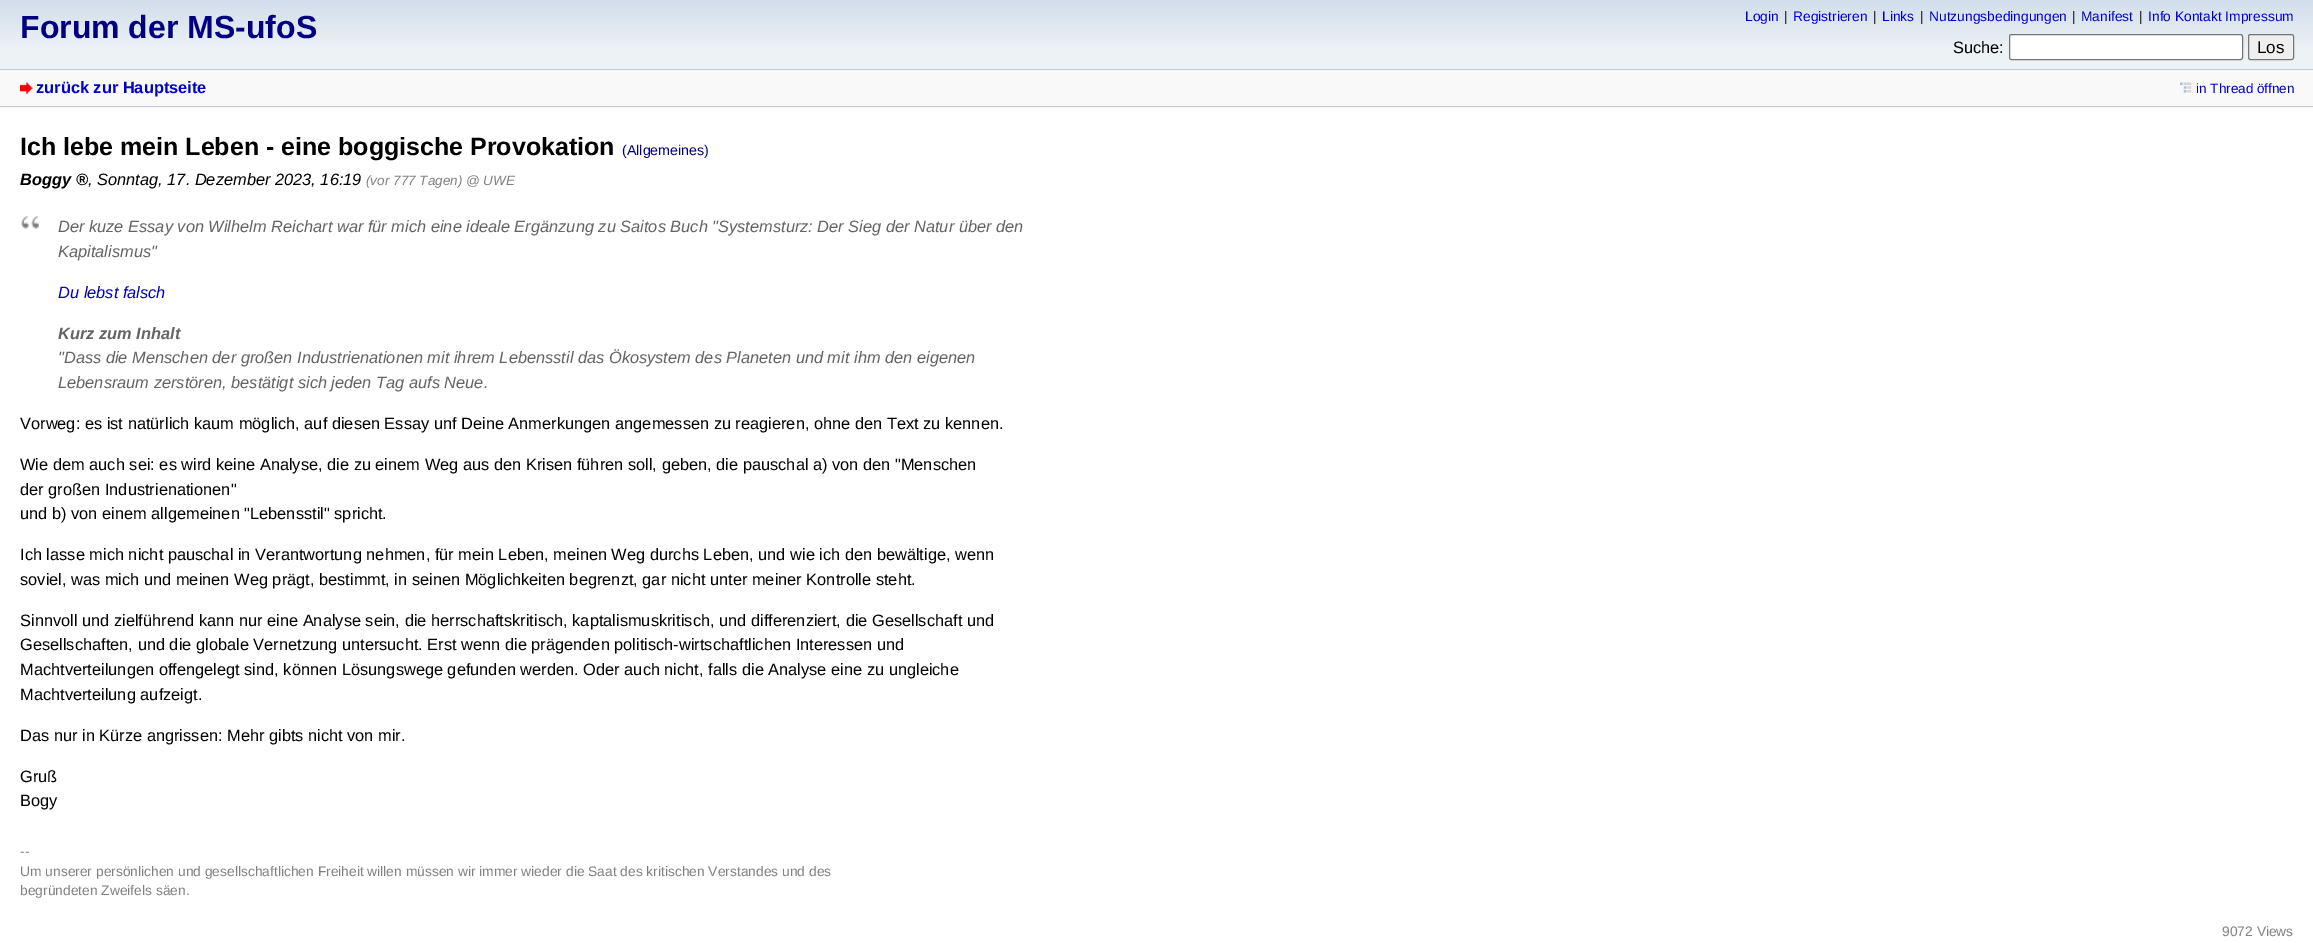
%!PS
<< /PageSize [2313 943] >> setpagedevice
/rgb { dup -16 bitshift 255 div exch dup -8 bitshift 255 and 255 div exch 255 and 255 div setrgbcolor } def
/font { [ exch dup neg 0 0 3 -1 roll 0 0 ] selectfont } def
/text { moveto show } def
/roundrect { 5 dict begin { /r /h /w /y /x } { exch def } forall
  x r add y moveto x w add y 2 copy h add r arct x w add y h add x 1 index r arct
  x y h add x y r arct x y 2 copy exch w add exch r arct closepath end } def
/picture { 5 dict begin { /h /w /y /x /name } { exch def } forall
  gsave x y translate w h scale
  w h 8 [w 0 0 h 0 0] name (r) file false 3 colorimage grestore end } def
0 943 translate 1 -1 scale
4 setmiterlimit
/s1 { /LiberationSans-Bold 32 font 16#000080 rgb } def
/s2 { /LiberationSans-Regular 13.8 font 16#0000CC rgb } def
/s3 { /LiberationSans-Regular 13.8 font 16#000000 rgb } def
/s4 { /LiberationSans-Regular 16.4 font 16#000000 rgb } def
/s5 { /LiberationSans-Regular 17 font 16#000000 rgb } def
/s6 { /LiberationSans-Bold 16.4 font 16#0000CC rgb } def
/s7 { /LiberationSans-Regular 13.5 font 16#0000CC rgb } def
/s8 { /LiberationSans-Bold 25 font 16#000000 rgb } def
/s9 { /LiberationSans-Regular 14.25 font 16#000080 rgb } def
/s10 { /LiberationSans-BoldItalic 16.4 font 16#000000 rgb } def
/s11 { /LiberationSans-Italic 16.4 font 16#000000 rgb } def
/s12 { /LiberationSans-Italic 13.5 font 16#808080 rgb } def
/s13 { /LiberationSans-Italic 16.4 font 16#646464 rgb } def
/s14 { /LiberationSans-Italic 16.4 font 16#0000CC rgb } def
/s15 { /LiberationSans-BoldItalic 16.4 font 16#646464 rgb } def
/s16 { /LiberationSans-Regular 13.8 font 16#808080 rgb } def
16#F9F9F9 rgb
0 0 2313 943 rectfill
gsave 0 0 moveto 2313 0 lineto 2313 69 lineto 0 69 lineto closepath clip newpath
<< /ShadingType 2 /ColorSpace /DeviceRGB /Coords [1157 0 1157 69] /Extend [true true] /Function << /FunctionType 3 /Domain [0 1] /Functions [<< /FunctionType 2 /Domain [0 1] /C0 [0.824 0.871 0.925] /C1 [0.929 0.949 0.961] /N 1 >> << /FunctionType 2 /Domain [0 1] /C0 [0.929 0.949 0.961] /C1 [0.929 0.949 0.961] /N 1 >>] /Bounds [0.73] /Encode [0 1 0 1] >> >> shfill grestore
s1
(Forum der MS-ufoS) 20 38 text
s2
(Login) 1745 21 text
s3
(|) 1784 21 text
s2
(Registrieren) 1793 21 text
s3
(|) 1873 21 text
s2
(Links) 1882 21 text
s3
(|) 1920 21 text
s2
(Nutzungsbedingungen) 1929 21 text
s3
(|) 2072 21 text
s2
(Manifest) 2081 21 text
s3
(|) 2139 21 text
s2
(Info Kontakt Impressum) 2148 21 text
s4
(Suche:) 1953 53 text
16#FFFFFF rgb
2009.5 34.5 233 25 2 roundrect gsave fill grestore
16#767676 rgb
stroke
16#EFEFEF rgb
2248.5 34.5 45 25 2 roundrect gsave fill grestore
16#767676 rgb
stroke
s5
(Los) 2257 53 text
16#BACBDF rgb
0 69 2313 1 rectfill
0 106 2313 1 rectfill
(pic1.raw) 20 82 13 12 picture
s6
(zurück zur Hauptseite) 36 93 text
(pic2.raw) 2180 82 12 11 picture
s7
(in Thread öffnen) 2196 93 text
16#FFFFFF rgb
0 108 2313 835 rectfill
s8
(Ich lebe mein Leben - eine boggische Provokation) 20 155 text
s9
(\(Allgemeines\)) 622 155 text
s10
(Boggy ®) 20 185 text
s11
(, Sonntag, 17. Dezember 2023, 16:19) 88 185 text
s12
(\(vor 777 Tagen\)) 366 185 text
(@ UWE) 466 185 text
(pic3.raw) 21 216 18 13 picture
s13
(Der kuze Essay von Wilhelm Reichart war für mich eine ideale Ergänzung zu Saitos Buch "Systemsturz: Der Sieg der Natur über den) 58 232 text
(Kapitalismus") 58 257 text
s14
(Du lebst falsch) 58 298 text
s15
(Kurz zum Inhalt) 58 339 text
s13
("Dass die Menschen der großen Industrienationen mit ihrem Lebensstil das Ökosystem des Planeten und mit ihm den eigenen) 58 363 text
(Lebensraum zerstören, bestätigt sich jeden Tag aufs Neue.) 58 388 text
s4
(Vorweg: es ist natürlich kaum möglich, auf diesen Essay unf Deine Anmerkungen angemessen zu reagieren, ohne den Text zu kennen.) 20 429 text
(Wie dem auch sei: es wird keine Analyse, die zu einem Weg aus den Krisen führen soll, geben, die pauschal a\) von den "Menschen) 20 470 text
(der großen Industrienationen") 20 495 text
(und b\) von einem allgemeinen "Lebensstil" spricht.) 20 519 text
(Ich lasse mich nicht pauschal in Verantwortung nehmen, für mein Leben, meinen Weg durchs Leben, und wie ich den bewältige, wenn) 20 560 text
(soviel, was mich und meinen Weg prägt, bestimmt, in seinen Möglichkeiten begrenzt, gar nicht unter meiner Kontrolle steht.) 20 585 text
(Sinnvoll und zielführend kann nur eine Analyse sein, die herrschaftskritisch, kaptalismuskritisch, und differenziert, die Gesellschaft und) 20 626 text
(Gesellschaften, und die globale Vernetzung untersucht. Erst wenn die prägenden politisch-wirtschaftlichen Interessen und) 20 650 text
(Machtverteilungen offengelegt sind, können Lösungswege gefunden werden. Oder auch nicht, falls die Analyse eine zu ungleiche) 20 675 text
(Machtverteilung aufzeigt.) 20 700 text
(Das nur in Kürze angrissen: Mehr gibts nicht von mir.) 20 741 text
(Gruß) 20 782 text
(Bogy) 20 806 text
s16
(--) 20 856 text
(Um unserer persönlichen und gesellschaftlichen Freiheit willen müssen wir immer wieder die Saat des kritischen Verstandes und des) 20 876 text
(begründeten Zweifels säen.) 20 895 text
(9072 Views) 2222 936 text
showpage
